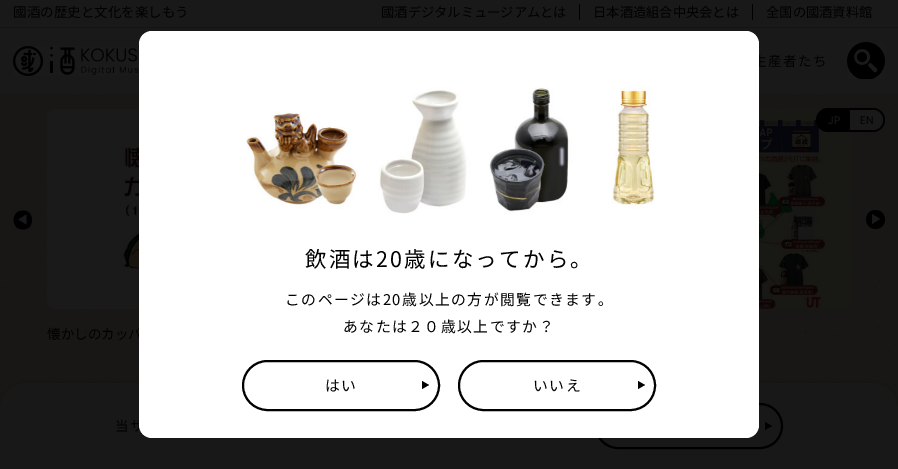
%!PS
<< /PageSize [898 469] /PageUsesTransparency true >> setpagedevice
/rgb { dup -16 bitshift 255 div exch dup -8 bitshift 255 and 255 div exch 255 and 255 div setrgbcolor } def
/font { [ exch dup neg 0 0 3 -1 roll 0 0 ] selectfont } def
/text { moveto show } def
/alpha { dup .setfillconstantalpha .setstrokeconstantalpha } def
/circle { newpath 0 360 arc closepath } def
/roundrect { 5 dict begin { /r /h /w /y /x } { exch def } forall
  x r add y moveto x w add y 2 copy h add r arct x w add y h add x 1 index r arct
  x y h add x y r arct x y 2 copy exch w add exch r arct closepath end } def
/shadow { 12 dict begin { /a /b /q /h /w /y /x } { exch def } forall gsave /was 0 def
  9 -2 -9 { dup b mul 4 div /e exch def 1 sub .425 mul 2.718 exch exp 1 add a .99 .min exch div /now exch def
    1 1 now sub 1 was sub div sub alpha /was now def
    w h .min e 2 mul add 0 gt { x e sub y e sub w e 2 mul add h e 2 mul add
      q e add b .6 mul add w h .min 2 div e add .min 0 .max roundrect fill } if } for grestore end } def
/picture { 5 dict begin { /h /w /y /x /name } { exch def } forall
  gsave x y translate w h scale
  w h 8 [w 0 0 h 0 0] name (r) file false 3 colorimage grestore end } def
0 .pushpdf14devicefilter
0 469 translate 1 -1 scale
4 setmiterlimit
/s1 { /NotoSansJP-Thin 13.5 font 16#000000 rgb } def
/s2 { /NotoSansJP-Thin 13.25 font 16#000000 rgb } def
/s3 { /Poppins-Regular 11 font 16#191919 rgb } def
/s4 { /Poppins-Regular 11 font 16#000000 rgb } def
16#FFFFFF rgb
0 0 898 469 rectfill
(pic3.raw) 0 94 898 316 picture
(pic4.raw) 759 109 92 200 picture
(pic5.raw) 47 109 92 200 picture
16#000000 rgb
0 4 898 97 0 3.5 0.1 shadow
16#191919 rgb
0 0 898 94 rectfill
s1
(國酒の歴史と文化を楽しもう) 13 17 text
s2
(國酒デジタルミュージアムとは) 381 17 text
579 4 1 16 rectfill
(日本酒造組合中央会とは) 593 17 text
752 4 1 16 rectfill
(全国の國酒資料館) 766 17 text
/NotoSansJP-Thin 13.5 font
753 66 moveto 1.5 0 (生産者たち) ashow
(pic1.raw) 847 42 38 37 picture
(pic2.raw) 13 46 126 30 picture
816 108 69 24 12 roundrect fill
s3
(JP) 828 124 text
850 110 moveto 873 110 lineto 878.5 110 883 114.5 883 120 curveto 883 125.5 878.5 130 873 130 curveto 850 130 lineto closepath fill
s4
(EN) 860 124 text
16#141414 rgb
0 27 898 1 rectfill
16#000000 rgb
23 210.5 moveto 10.5 210.5 10.5 229.5 23 229.5 curveto 35 229.5 35 210.5 23 210.5 curveto closepath fill
16#191919 rgb
26.5 224.5 moveto 26.5 214.5 lineto 18.5 219.5 lineto closepath fill
16#000000 rgb
875.5 219.5 9.5 circle fill
16#191919 rgb
872 224 moveto 872 214 lineto 880 219 lineto closepath fill
s1
(懐かしのカッパ) 47 339 text
0 383 898 86 27 6.5 0.2 shadow
16#181818 rgb
27 383 moveto 871 383 lineto 886 383 898 395 898 410 curveto 898 469 lineto 0 469 lineto 0 410 lineto 0 395 12 383 27 383 curveto closepath fill
16#000000 rgb
115 431 moveto 1.5 0 (当サ) ashow
2 setlinewidth
596 404 186 44 22 roundrect stroke
16#FFFFFF rgb
139 31 620 407 13 roundrect fill
(pic6.raw) 246 87 409 127 picture
/NotoSansJP-Thin 21.5 font
16#000000 rgb
305 267 moveto 2.2 0 (飲酒は20歳になってから。) ashow
/NotoSansJP-Thin 14.8 font
285 305 moveto 1.5 0 (このページは20歳以上の方が閲覧できます。) ashow
343 332 moveto 1.5 0 (あなたは２０歳以上ですか？) ashow
243 361 196 49 24.5 roundrect stroke
325 391 moveto 1.5 0 (はい) ashow
422 389 moveto 422 381 lineto 429 385 lineto closepath fill
459 361 196 49 24.5 roundrect stroke
533 391 moveto 1.5 0 (いいえ) ashow
638 389 moveto 638 381 lineto 645 385 lineto closepath fill
765 430 moveto 765 422 lineto 772 426 lineto closepath fill
.poppdf14devicefilter showpage
